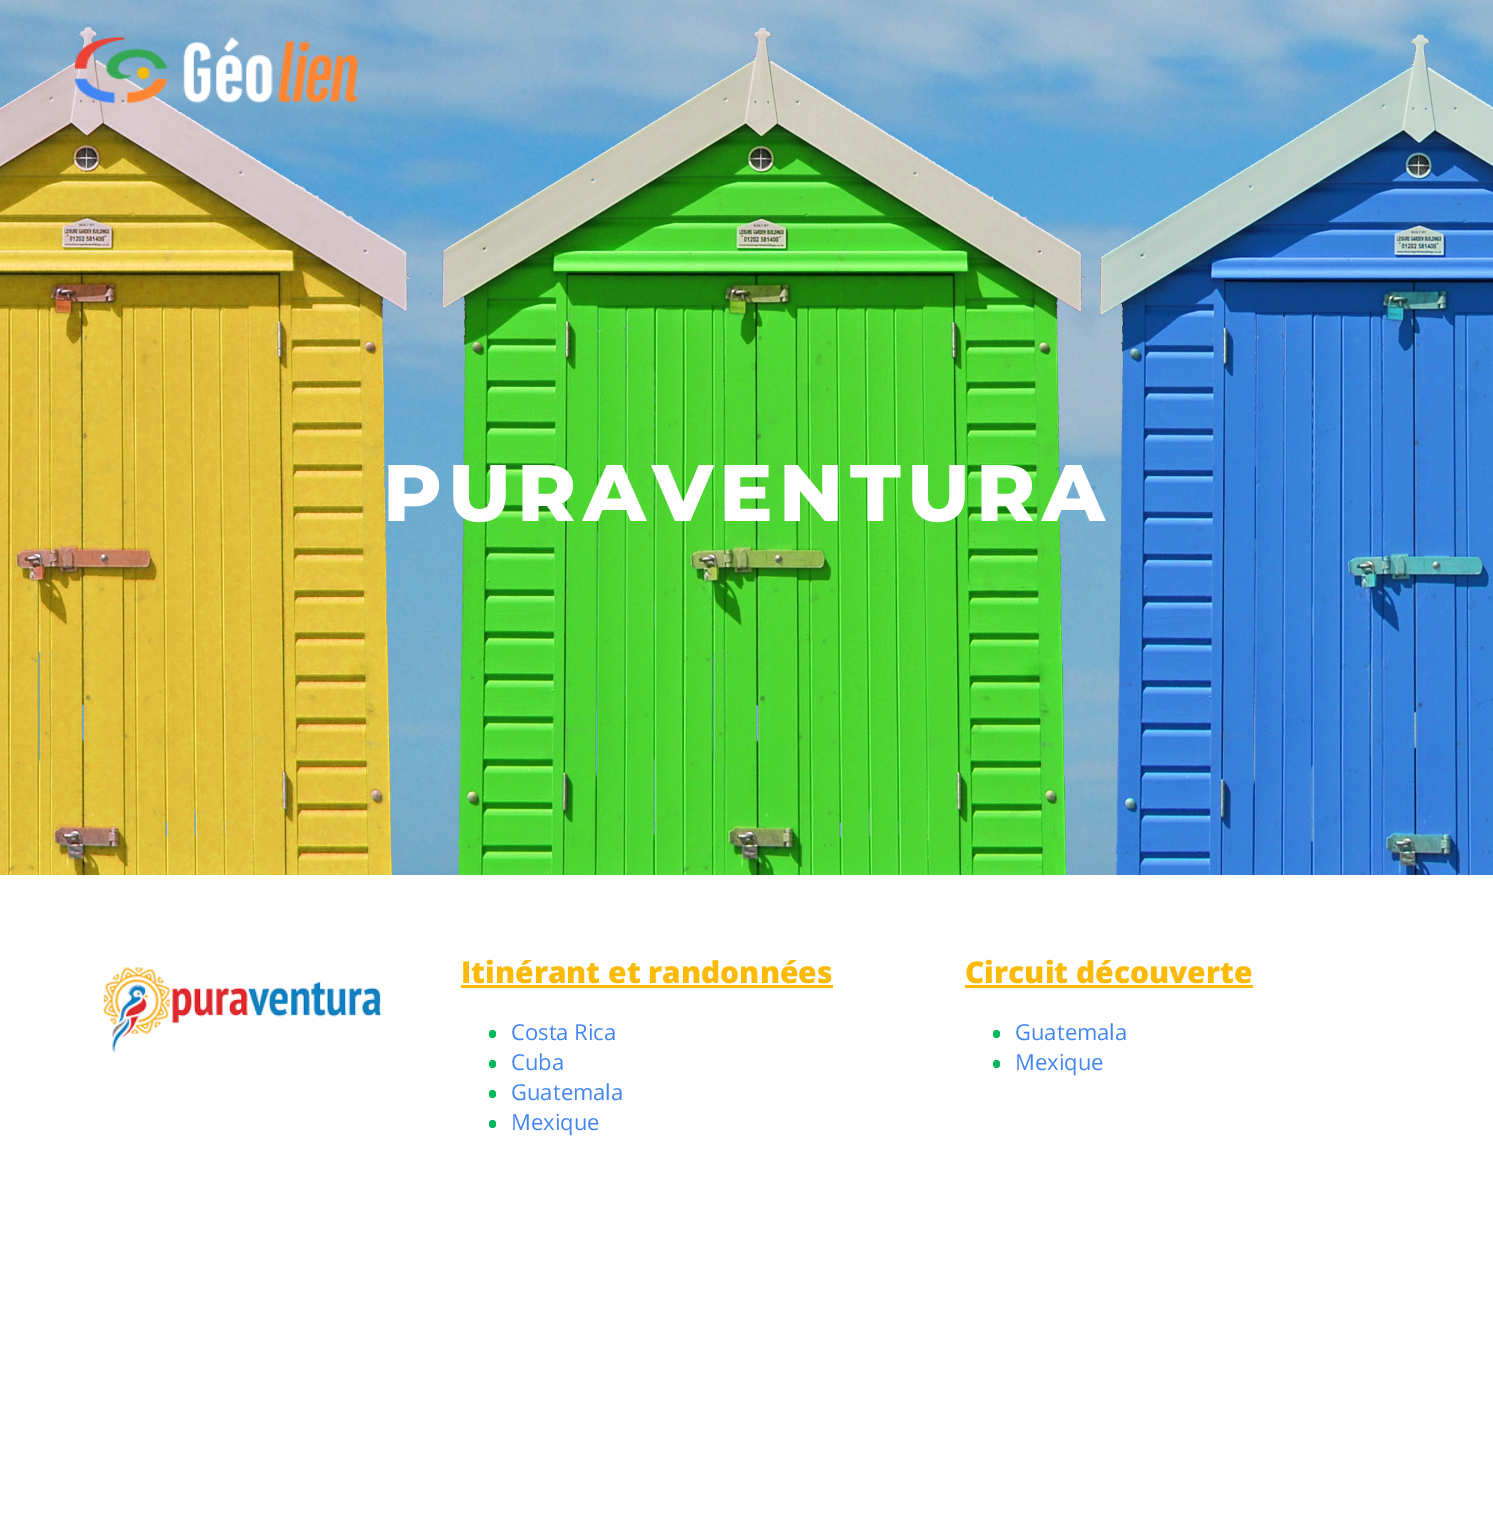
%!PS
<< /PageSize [1493 1527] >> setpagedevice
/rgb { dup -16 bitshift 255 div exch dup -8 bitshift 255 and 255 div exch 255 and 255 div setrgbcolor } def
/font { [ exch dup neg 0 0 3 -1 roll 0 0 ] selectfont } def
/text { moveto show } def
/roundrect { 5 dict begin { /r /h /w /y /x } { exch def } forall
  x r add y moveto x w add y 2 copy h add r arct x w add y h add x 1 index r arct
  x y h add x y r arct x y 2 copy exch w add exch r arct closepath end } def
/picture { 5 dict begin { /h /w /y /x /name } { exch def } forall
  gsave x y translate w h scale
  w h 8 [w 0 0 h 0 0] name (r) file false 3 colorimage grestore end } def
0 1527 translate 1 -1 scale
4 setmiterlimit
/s1 { /OpenSans-ExtraBold 30 font 16#FABA06 rgb } def
/s2 { /OpenSans-Regular 22 font 16#4285F4 rgb } def
16#FFFFFF rgb
0 0 1493 1527 rectfill
(pic1.raw) 0 0 1493 875 picture
(pic2.raw) 75 37 283 67 picture
/Montserrat-Thin 80 font
383 521 moveto 6.25 0 (PURAVENTURA) ashow
(pic3.raw) 103 967 279 86 picture
s1
(Itinérant et randonnées) 461 983 text
461 985 372 3 rectfill
16#00B75B rgb
489 1030 7 8 3.5 roundrect fill
s2
(Costa Rica) 511 1040 text
16#00B75B rgb
489 1060 7 8 3.5 roundrect fill
s2
(Cuba) 511 1070 text
16#00B75B rgb
489 1090 7 8 3.5 roundrect fill
s2
(Guatemala) 511 1100 text
16#00B75B rgb
489 1120 7 8 3.5 roundrect fill
s2
(Mexique) 511 1130 text
s1
(Circuit découverte) 965 983 text
965 985 288 3 rectfill
16#00B75B rgb
993 1030 7 8 3.5 roundrect fill
s2
(Guatemala) 1015 1040 text
16#00B75B rgb
993 1060 7 8 3.5 roundrect fill
s2
(Mexique) 1015 1070 text
showpage
